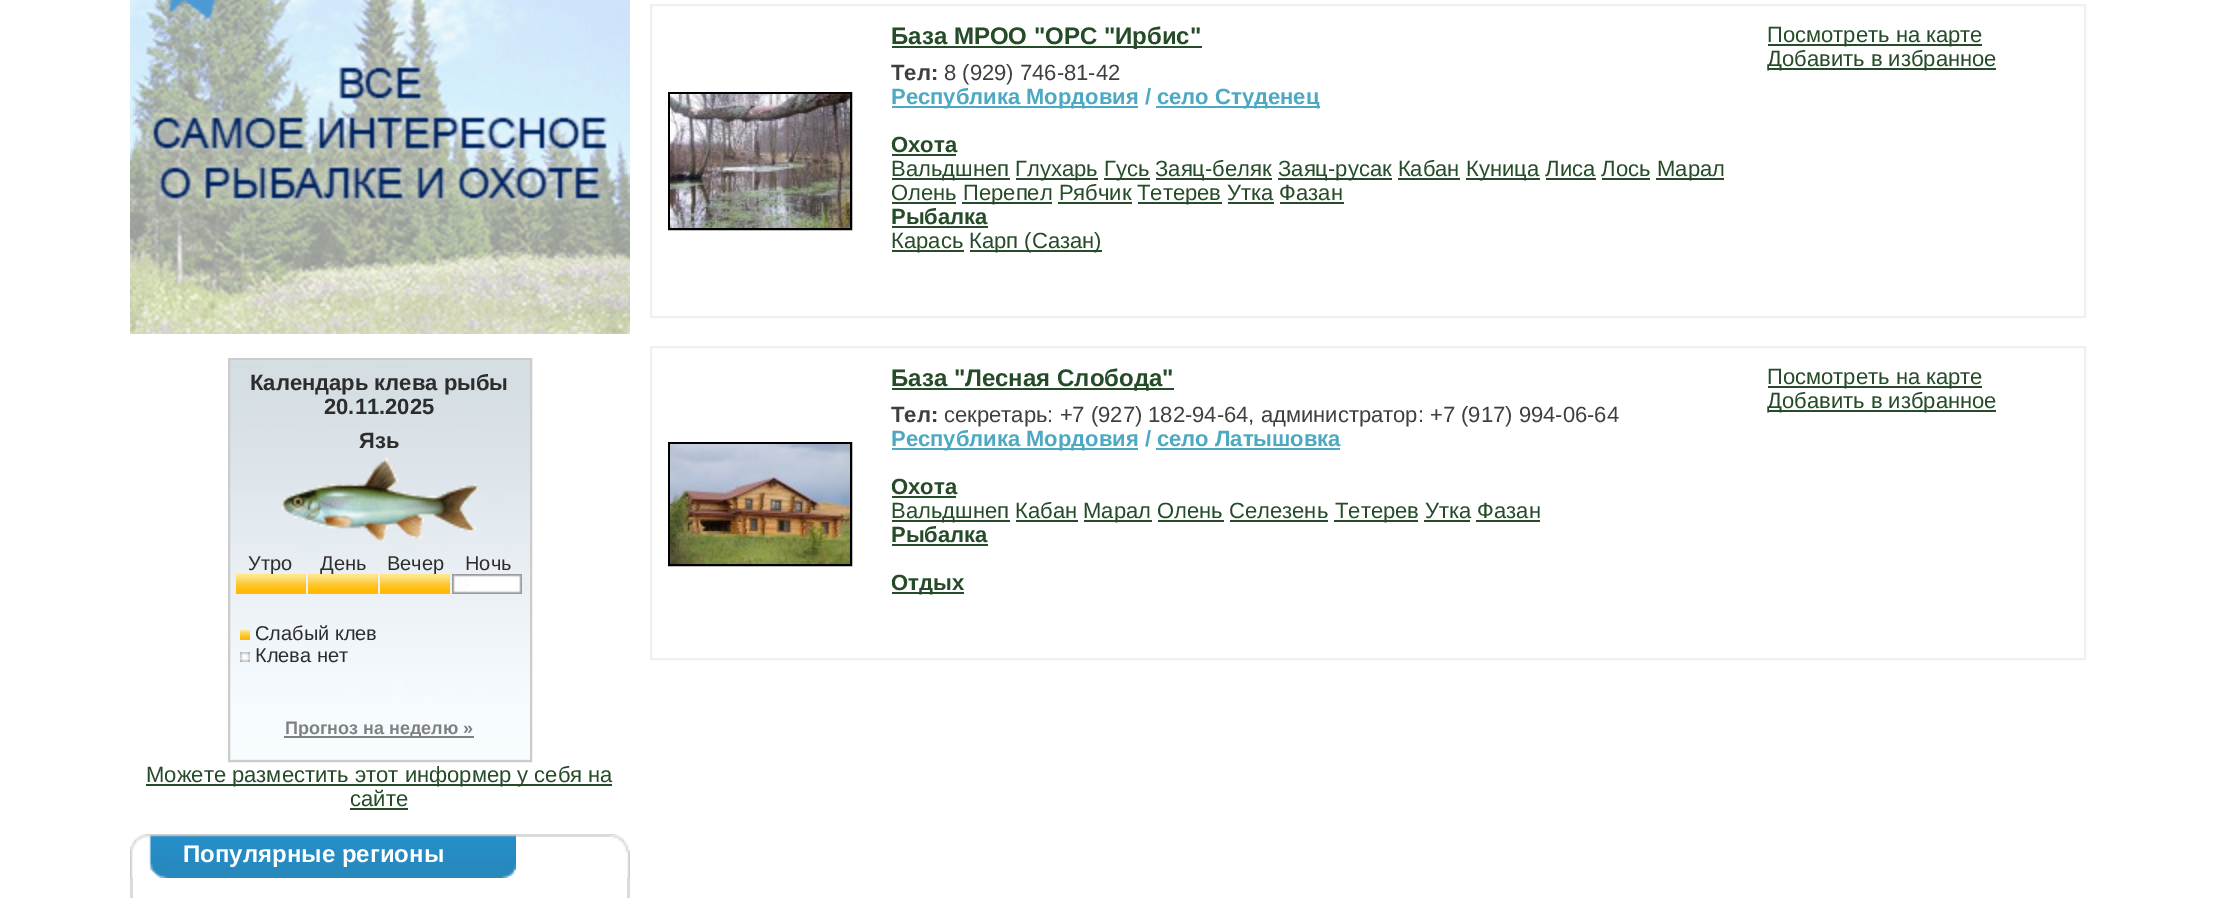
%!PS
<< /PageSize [2214 898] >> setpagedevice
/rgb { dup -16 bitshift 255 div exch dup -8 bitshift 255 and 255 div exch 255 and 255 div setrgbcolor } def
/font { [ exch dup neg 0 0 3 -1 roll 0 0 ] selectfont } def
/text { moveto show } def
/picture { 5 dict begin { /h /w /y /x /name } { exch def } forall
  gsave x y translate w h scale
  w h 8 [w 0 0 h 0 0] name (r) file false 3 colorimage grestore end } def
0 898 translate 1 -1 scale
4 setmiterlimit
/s1 { /LiberationSans-Bold 22 font 16#2D2D2D rgb } def
/s2 { /LiberationSans-Regular 20 font 16#2D2D2D rgb } def
/s3 { /LiberationSans-Bold 18 font 16#808080 rgb } def
/s4 { /LiberationSans-Regular 22 font 16#254B29 rgb } def
/s5 { /LiberationSans-Bold 24 font 16#FFFFFF rgb } def
/s6 { /LiberationSans-Bold 24 font 16#254B29 rgb } def
/s7 { /LiberationSans-Bold 22 font 16#3F3F3F rgb } def
/s8 { /LiberationSans-Regular 22 font 16#3F3F3F rgb } def
/s9 { /LiberationSans-Bold 22 font 16#4DA9C2 rgb } def
/s10 { /LiberationSans-Bold 22 font 16#254B29 rgb } def
16#FFFFFF rgb
0 0 2214 898 rectfill
(pic1.raw) 130 0 500 334 picture
(pic2.raw) 230 360 300 400 picture
16#CCCCCC rgb
2 setlinewidth
229 359 302 402 rectstroke
s1
(Календарь клева рыбы) 250 390 text
(20.11.2025) 324 414 text
(Язь) 359 448 text
(pic3.raw) 281 457 198 86 picture
s2
(Утро) 248 570 text
(День) 320 570 text
(Вечер) 387 570 text
(Ночь) 465 570 text
(pic4.raw) 236 574 70 20 picture
(pic5.raw) 308 574 70 20 picture
(pic6.raw) 380 574 70 20 picture
(pic7.raw) 452 574 70 20 picture
(pic8.raw) 240 630 10 10 picture
(Слабый клев) 255 640 text
(pic9.raw) 240 652 10 10 picture
(Клева нет) 255 662 text
16#808080 rgb
284 736 190 2 rectfill
s3
(Прогноз на неделю ») 285 734 text
16#254B29 rgb
146 784 466 2 rectfill
s4
(Можете разместить этот информер у себя на) 146 782 text
(сайте) 350 806 text
350 808 58 2 rectfill
(pic10.raw) 130 834 18 44 picture
16#DADADA rgb
516 834 94 3 rectfill
(pic11.raw) 168 834 348 44 picture
(pic12.raw) 148 834 20 44 picture
(pic13.raw) 501 864 15 14 picture
s5
(Популярные регионы) 183 862 text
(pic14.raw) 610 834 20 44 picture
16#DADADA rgb
130 878 3 20 rectfill
627 878 3 20 rectfill
16#F0F0F0 rgb
651 5 1434 312 rectstroke
16#254B29 rgb
892 46 310 2 rectfill
(База МРОО "ОРС "Ирбис") 891 44 text
s7
(Тел:) 891 80 text
s8
(8 \(929\) 746-81-42) 944 80 text
16#4DA9C2 rgb
892 106 246 2 rectfill
s9
(Республика Мордовия /) 891 104 text
1156 106 164 2 rectfill
(село Студенец) 1157 104 text
s10
(Охота) 891 152 text
892 154 64 2 rectfill
892 178 118 2 rectfill
s4
(Вальдшнеп) 891 176 text
1016 178 82 2 rectfill
(Глухарь) 1015 176 text
1104 178 46 2 rectfill
(Гусь) 1104 176 text
1156 178 116 2 rectfill
(Заяц-беляк) 1155 176 text
1278 178 114 2 rectfill
(Заяц-русак Кабан) 1278 176 text
1466 178 74 2 rectfill
(Куница Лиса Лось) 1466 176 text
1656 178 68 2 rectfill
(Марал) 1657 176 text
1398 178 62 2 rectfill
1546 178 50 2 rectfill
1602 178 48 2 rectfill
(Олень) 891 200 text
892 202 64 2 rectfill
962 202 90 2 rectfill
(Перепел Рябчик) 963 200 text
1138 202 84 2 rectfill
(Тетерев Утка Фазан) 1137 200 text
1058 202 74 2 rectfill
1228 202 46 2 rectfill
1280 202 64 2 rectfill
s10
(Рыбалка) 891 224 text
892 226 96 2 rectfill
892 250 72 2 rectfill
s4
(Карась) 891 248 text
970 250 132 2 rectfill
(Карп \(Сазан\)) 969 248 text
1768 44 214 2 rectfill
(Посмотреть на карте) 1767 42 text
1768 68 228 2 rectfill
(Добавить в избранное) 1767 66 text
16#000000 rgb
669 93 182 136 rectstroke
(pic15.raw) 670 94 180 134 picture
16#F0F0F0 rgb
651 347 1434 312 rectstroke
16#254B29 rgb
892 388 282 2 rectfill
s6
(База "Лесная Слобода") 891 386 text
s7
(Тел:) 891 422 text
s8
(секретарь: +7 \(927\) 182-94-64, администратор: +7 \(917\) 994-06-64) 944 422 text
16#4DA9C2 rgb
892 448 246 2 rectfill
s9
(Республика Мордовия / село Латышовка) 891 446 text
1156 448 184 2 rectfill
s10
(Охота) 891 494 text
892 496 64 2 rectfill
892 520 118 2 rectfill
s4
(Вальдшнеп Кабан) 891 518 text
1084 520 68 2 rectfill
(Марал Олень Селезень) 1083 518 text
1334 520 84 2 rectfill
(Тетерев Утка Фазан) 1335 518 text
1016 520 62 2 rectfill
1158 520 66 2 rectfill
1230 520 98 2 rectfill
1424 520 46 2 rectfill
1476 520 64 2 rectfill
s10
(Рыбалка) 891 542 text
892 544 96 2 rectfill
892 592 72 2 rectfill
(Отдых) 891 590 text
1768 386 214 2 rectfill
s4
(Посмотреть на карте) 1767 384 text
1768 410 228 2 rectfill
(Добавить в избранное) 1767 408 text
16#000000 rgb
669 443 182 122 rectstroke
(pic16.raw) 670 444 180 120 picture
showpage
